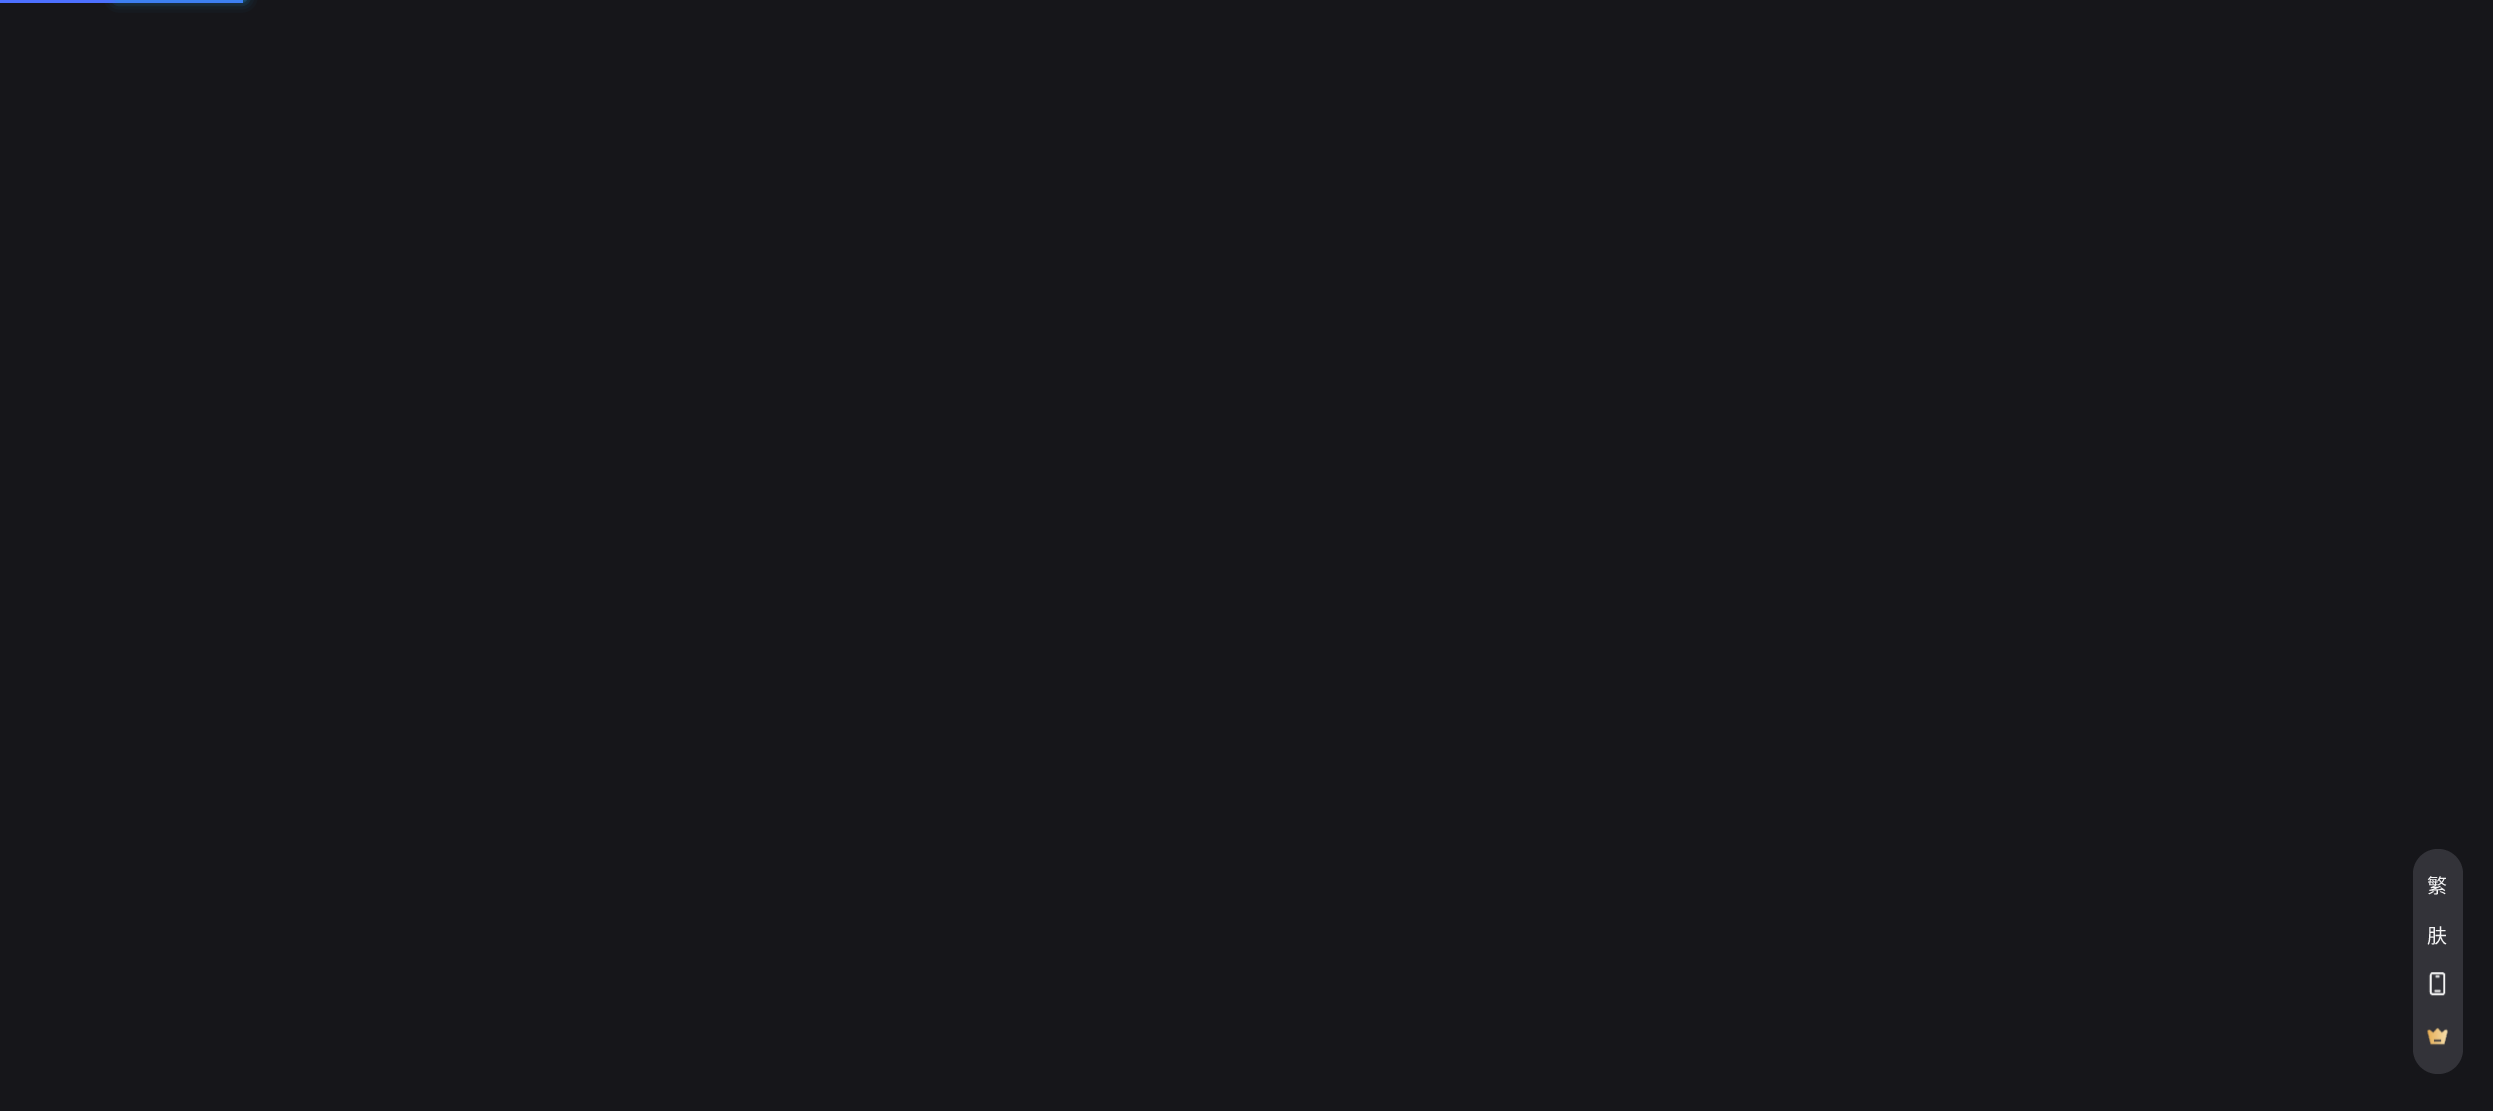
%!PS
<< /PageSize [2493 1111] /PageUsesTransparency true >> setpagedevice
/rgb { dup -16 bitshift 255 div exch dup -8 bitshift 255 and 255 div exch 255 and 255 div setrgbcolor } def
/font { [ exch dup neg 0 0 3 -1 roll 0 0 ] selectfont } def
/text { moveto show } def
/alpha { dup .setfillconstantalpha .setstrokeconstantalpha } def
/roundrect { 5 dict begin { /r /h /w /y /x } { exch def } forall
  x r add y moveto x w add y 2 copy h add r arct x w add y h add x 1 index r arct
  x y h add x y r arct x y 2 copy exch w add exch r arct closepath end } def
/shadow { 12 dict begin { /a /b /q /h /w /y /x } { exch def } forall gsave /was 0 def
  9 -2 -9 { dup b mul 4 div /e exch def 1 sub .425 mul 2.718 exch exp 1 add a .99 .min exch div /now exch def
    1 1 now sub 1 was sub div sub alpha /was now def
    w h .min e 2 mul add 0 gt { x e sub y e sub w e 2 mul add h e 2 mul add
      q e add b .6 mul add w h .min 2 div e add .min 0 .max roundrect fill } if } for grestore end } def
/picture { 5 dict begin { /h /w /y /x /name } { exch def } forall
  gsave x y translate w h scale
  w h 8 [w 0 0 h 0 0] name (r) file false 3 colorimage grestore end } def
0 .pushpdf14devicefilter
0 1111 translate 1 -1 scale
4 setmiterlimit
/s1 { /NotoSansCJKSC-Regular 20 font 16#F3F3F4 rgb } def
16#16161A rgb
0 0 2493 1111 rectfill
16#4D70FF rgb
0 0 243 3 rectfill
16#2299DD rgb
118 -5 125 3 0 3 1 shadow
118 -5 125 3 0 6.5 1 shadow
16#333339 rgb
2413 849 50 225 25 roundrect fill
s1
(繁) 2427 893 text
(肤) 2427 943 text
(pic1.raw) 2428 972 18 24 picture
(pic2.raw) 2427 1027 21 19 picture
.poppdf14devicefilter showpage
